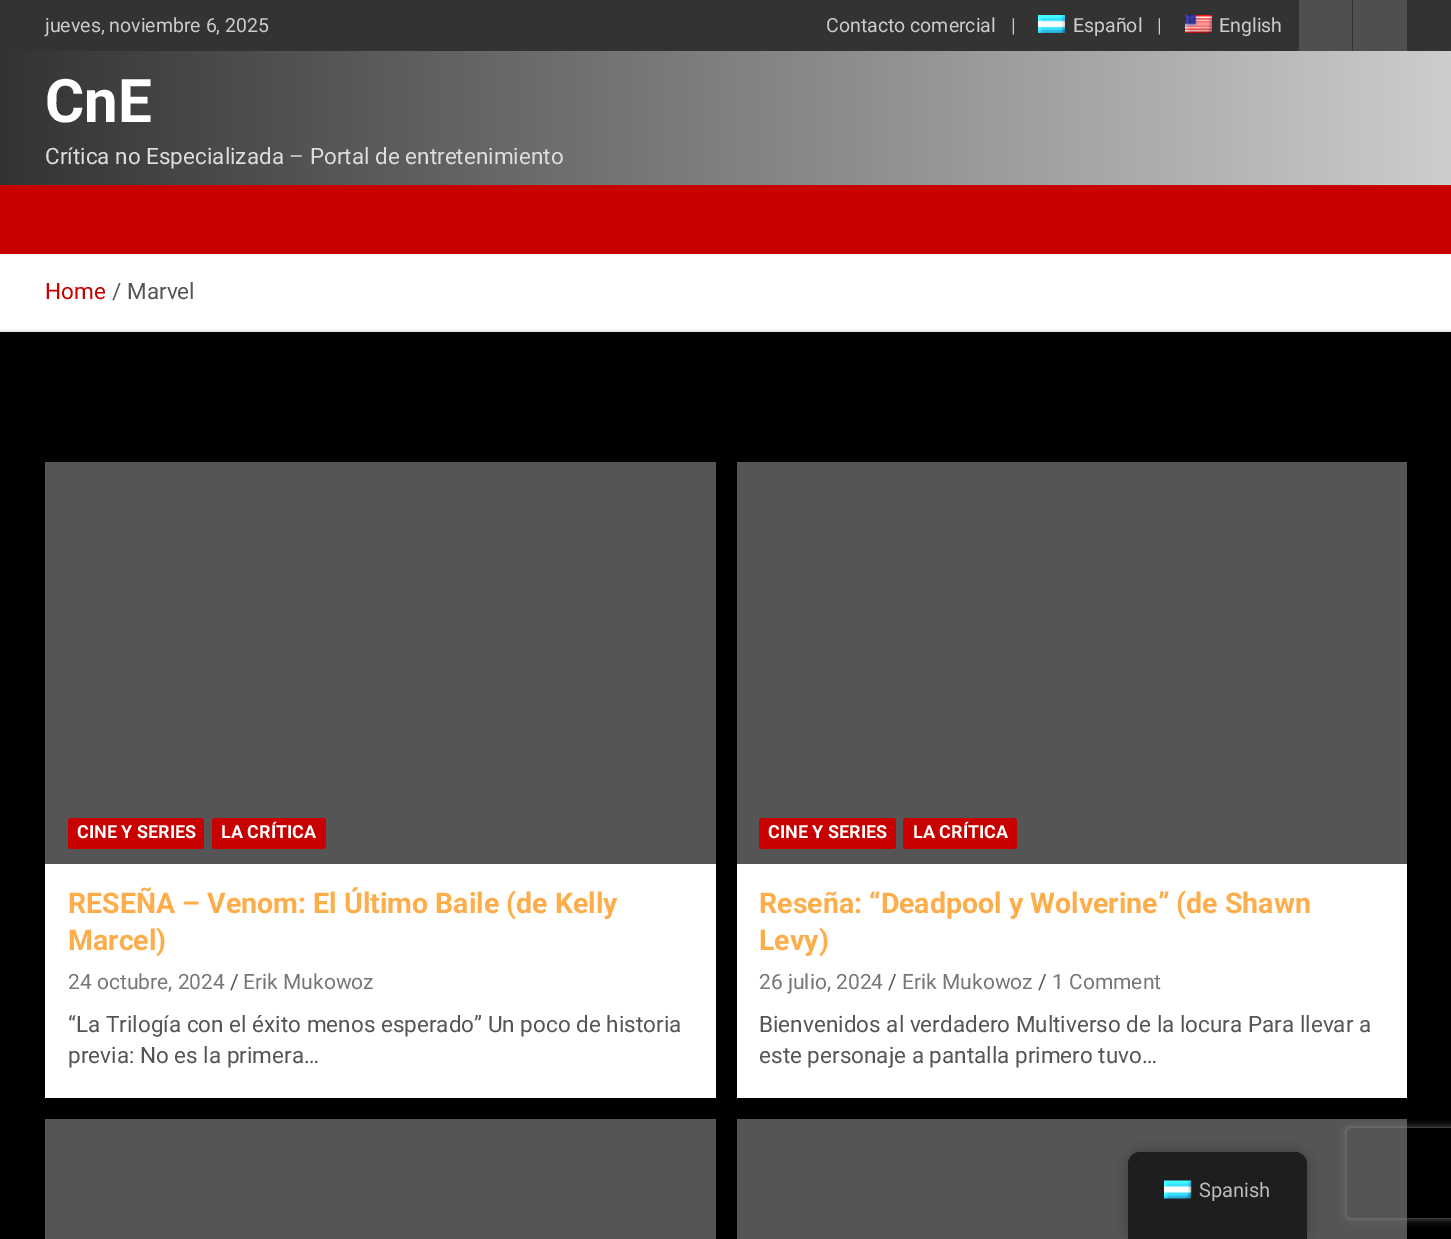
%!PS
<< /PageSize [1451 1239] /PageUsesTransparency true >> setpagedevice
/rgb { dup -16 bitshift 255 div exch dup -8 bitshift 255 and 255 div exch 255 and 255 div setrgbcolor } def
/font { [ exch dup neg 0 0 3 -1 roll 0 0 ] selectfont } def
/text { moveto show } def
/alpha { dup .setfillconstantalpha .setstrokeconstantalpha } def
/roundrect { 5 dict begin { /r /h /w /y /x } { exch def } forall
  x r add y moveto x w add y 2 copy h add r arct x w add y h add x 1 index r arct
  x y h add x y r arct x y 2 copy exch w add exch r arct closepath end } def
/shadow { 12 dict begin { /a /b /q /h /w /y /x } { exch def } forall gsave /was 0 def
  9 -2 -9 { dup b mul 4 div /e exch def 1 sub .425 mul 2.718 exch exp 1 add a .99 .min exch div /now exch def
    1 1 now sub 1 was sub div sub alpha /was now def
    w h .min e 2 mul add 0 gt { x e sub y e sub w e 2 mul add h e 2 mul add
      q e add b .6 mul add w h .min 2 div e add .min 0 .max roundrect fill } if } for grestore end } def
/picture { 5 dict begin { /h /w /y /x /name } { exch def } forall
  gsave x y translate w h scale
  w h 8 [w 0 0 h 0 0] name (r) file false 3 colorimage grestore end } def
0 .pushpdf14devicefilter
0 1239 translate 1 -1 scale
4 setmiterlimit
/s1 { /Roboto-Regular 19.5 font 16#CCCCCC rgb } def
/s2 { /Roboto-Bold 60 font 16#FFFFFF rgb } def
/s3 { /Roboto-Regular 22.5 font 16#DDDDDD rgb } def
/s4 { /Roboto-Regular 22.5 font 16#C80000 rgb } def
/s5 { /Roboto-Regular 22.5 font 16#555555 rgb } def
/s6 { /Roboto-Bold 18 font 16#FFFFFF rgb } def
/s7 { /Roboto-Bold 28.5 font 16#FDAD49 rgb } def
/s8 { /Roboto-Regular 21 font 16#777777 rgb } def
/s9 { /Roboto-Regular 21 font 16#555555 rgb } def
/s10 { /Roboto-Regular 20 font 16#BDBDBD rgb } def
16#000000 rgb
0 0 1451 1239 rectfill
16#333333 rgb
0 0 1451 51 rectfill
s1
(jueves, noviembre 6, 2025) 45 32 text
(Contacto comercial) 826 32 text
(|) 1011 32 text
(pic1.raw) 1038 15 27 18 picture
(Español) 1073 32 text
(|) 1157 32 text
(pic2.raw) 1185 15 27 18 picture
(English) 1219 32 text
16#4F4F4F rgb
1299 0 53 51 rectfill
1353 0 54 51 rectfill
gsave 0 51 moveto 1451 51 lineto 1451 185 lineto 0 185 lineto closepath clip newpath
<< /ShadingType 2 /ColorSpace /DeviceRGB /Coords [0 118 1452 118] /Extend [true true] /Function << /FunctionType 2 /Domain [0 1] /C0 [0.2 0.2 0.2] /C1 [0.804 0.804 0.804] /N 1 >> >> shfill grestore
s2
(CnE) 45 122 text
s3
(Crítica no Especializada – Portal de entretenimiento) 45 164 text
16#C80000 rgb
0 185 1451 69 rectfill
16#FFFFFF rgb
0 254 1451 76 rectfill
16#E6E6E6 rgb
0 330 1451 2 rectfill
s4
(Home) 45 299 text
s5
(/) 112 299 text
(Marvel) 127 299 text
16#FFFFFF rgb
45 864 671 234 rectfill
16#555555 rgb
45 462 671 402 rectfill
16#C80000 rgb
68 818 136 31 3 roundrect fill
s6
(CINE Y SERIES) 77 838 text
16#C80000 rgb
212 818 114 31 3 roundrect fill
s6
(LA CRÍTICA) 221 838 text
s7
(RESEÑA – Venom: El Último Baile \(de Kelly) 68 913 text
(Marcel\)) 68 950 text
s8
(24 octubre, 2024) 68 989 text
s9
(/) 230 989 text
s8
(Erik Mukowoz) 243 989 text
s5
(“La Trilogía con el éxito menos esperado” Un poco de historia) 68 1032 text
(previa: No es la primera…) 68 1063 text
16#FFFFFF rgb
737 864 670 234 rectfill
16#555555 rgb
737 462 670 402 rectfill
16#C80000 rgb
759 818 137 31 3 roundrect fill
s6
(CINE Y SERIES) 768 838 text
16#C80000 rgb
903 818 114 31 3 roundrect fill
s6
(LA CRÍTICA) 913 838 text
s7
(Reseña: “Deadpool y Wolverine” \(de Shawn) 759 913 text
(Levy\)) 759 950 text
s8
(26 julio, 2024) 759 989 text
s9
(/) 888 989 text
s8
(Erik Mukowoz) 902 989 text
s9
(/) 1038 989 text
s8
(1 Comment) 1052 989 text
s5
(Bienvenidos al verdadero Multiverso de la locura Para llevar a) 759 1032 text
(este personaje a pantalla primero tuvo…) 759 1063 text
45 1119 671 120 rectfill
737 1119 670 120 rectfill
16#000000 rgb
1128 1152 179 87 12 6 0.25 shadow
16#1E1E1E rgb
1140 1152 moveto 1295 1152 lineto 1301.5 1152 1307 1157.5 1307 1164 curveto 1307 1239 lineto 1128 1239 lineto 1128 1164 lineto 1128 1157.5 1133.5 1152 1140 1152 curveto closepath fill
(pic3.raw) 1164 1180 28 19 picture
s10
(Spanish) 1199 1197 text
gsave
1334 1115 moveto 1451 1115 lineto 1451 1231 lineto 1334 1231 lineto closepath 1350 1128 moveto 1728 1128 lineto 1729.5 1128 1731 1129.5 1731 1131 curveto 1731 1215 lineto 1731 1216.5 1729.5 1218 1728 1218 curveto 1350 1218 lineto 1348.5 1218 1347 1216.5 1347 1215 curveto 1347 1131 lineto 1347 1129.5 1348.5 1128 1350 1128 curveto closepath eoclip newpath
16#808080 rgb
1347 1128 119 90 3 4 1 shadow
grestore
.poppdf14devicefilter showpage
